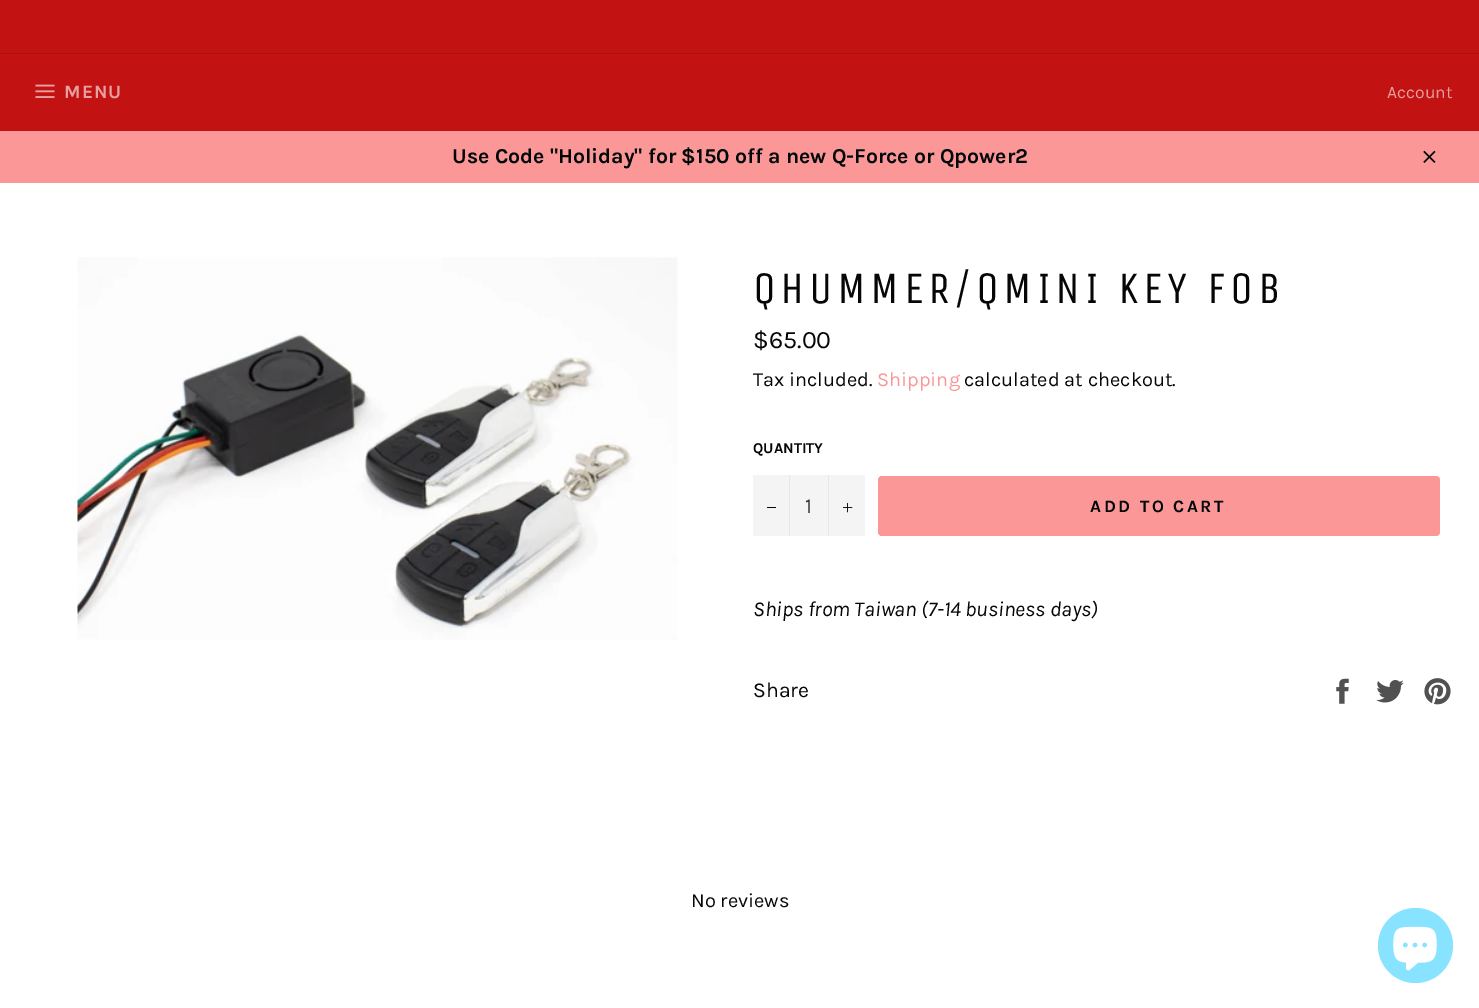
%!PS
<< /PageSize [1479 1008] >> setpagedevice
/rgb { dup -16 bitshift 255 div exch dup -8 bitshift 255 and 255 div exch 255 and 255 div setrgbcolor } def
/font { [ exch dup neg 0 0 3 -1 roll 0 0 ] selectfont } def
/text { moveto show } def
/circle { newpath 0 360 arc closepath } def
/roundrect { 5 dict begin { /r /h /w /y /x } { exch def } forall
  x r add y moveto x w add y 2 copy h add r arct x w add y h add x 1 index r arct
  x y h add x y r arct x y 2 copy exch w add exch r arct closepath end } def
/picture { 5 dict begin { /h /w /y /x /name } { exch def } forall
  gsave x y translate w h scale
  w h 8 [w 0 0 h 0 0] name (r) file false 3 colorimage grestore end } def
0 1008 translate 1 -1 scale
4 setmiterlimit
/s1 { /Karla-Regular 17.5 font 16#E7A0A0 rgb } def
/s2 { /Karla-Bold 21.25 font 16#01080A rgb } def
/s3 { /Karla-Regular 25 font 16#070606 rgb } def
/s4 { /Karla-Regular 20 font 16#070606 rgb } def
/s5 { /Karla-Regular 20 font 16#FC9797 rgb } def
/s6 { /Karla-Bold 15 font 16#070606 rgb } def
/s7 { /Karla-Regular 21.25 font 16#333333 rgb } def
/s8 { /Karla-Italic 21.25 font 16#070606 rgb } def
/s9 { /Karla-Regular 21.25 font 16#070606 rgb } def
16#FFFFFF rgb
0 0 1479 1008 rectfill
16#C21212 rgb
0 0 1479 53 rectfill
0 54 1479 77 rectfill
16#AB1010 rgb
0 53 1479 1 rectfill
(pic1.raw) 35 84 20 14 picture
/Karla-Bold 19 font
16#E7A0A0 rgb
64 98 moveto 1 0 (MENU) ashow
s1
(Account) 1387 98 text
16#FC9797 rgb
0 131 1479 52 rectfill
s2
(Use Code "Holiday" for $150 off a new Q-Force or Qpower2) 452 163 text
(pic2.raw) 1423 150 13 13 picture
(pic3.raw) 77 257 601 383 picture
/UnicaOne-Regular 45 font
16#070606 rgb
753 303 moveto 4.5 0 (QHUMMER/QMINI KEY FOB) ashow
s3
($65.00) 753 348 text
s4
(Tax included.) 753 386 text
s5
(Shipping) 877 386 text
s4
(calculated at checkout.) 964 386 text
s6
(QUANTITY) 753 453 text
16#F4F4F4 rgb
753 475 112 61 rectfill
16#E7E7E7 rgb
789 475 1 61 rectfill
16#070606 rgb
767 507 9 1 rectfill
s7
(1) 805 513 text
16#E7E7E7 rgb
828 475 1 61 rectfill
(pic4.raw) 843 503 10 10 picture
16#FC9797 rgb
878 476 562 60 4 roundrect fill
/Karla-Bold 17.5 font
16#01080A rgb
1090 512 moveto 2.6 0 (ADD TO CART) ashow
s8
(Ships from Taiwan \(7-14 business days\)) 753 616 text
s9
(Share) 753 697 text
(pic5.raw) 1336 678 13 26 picture
(pic6.raw) 1376 680 28 23 picture
(pic7.raw) 1424 678 27 27 picture
s4
(No reviews) 691 907 text
16#87E3FF rgb
1415.5 945.5 37.5 circle fill
(pic8.raw) 1393 926 44 45 picture
showpage
